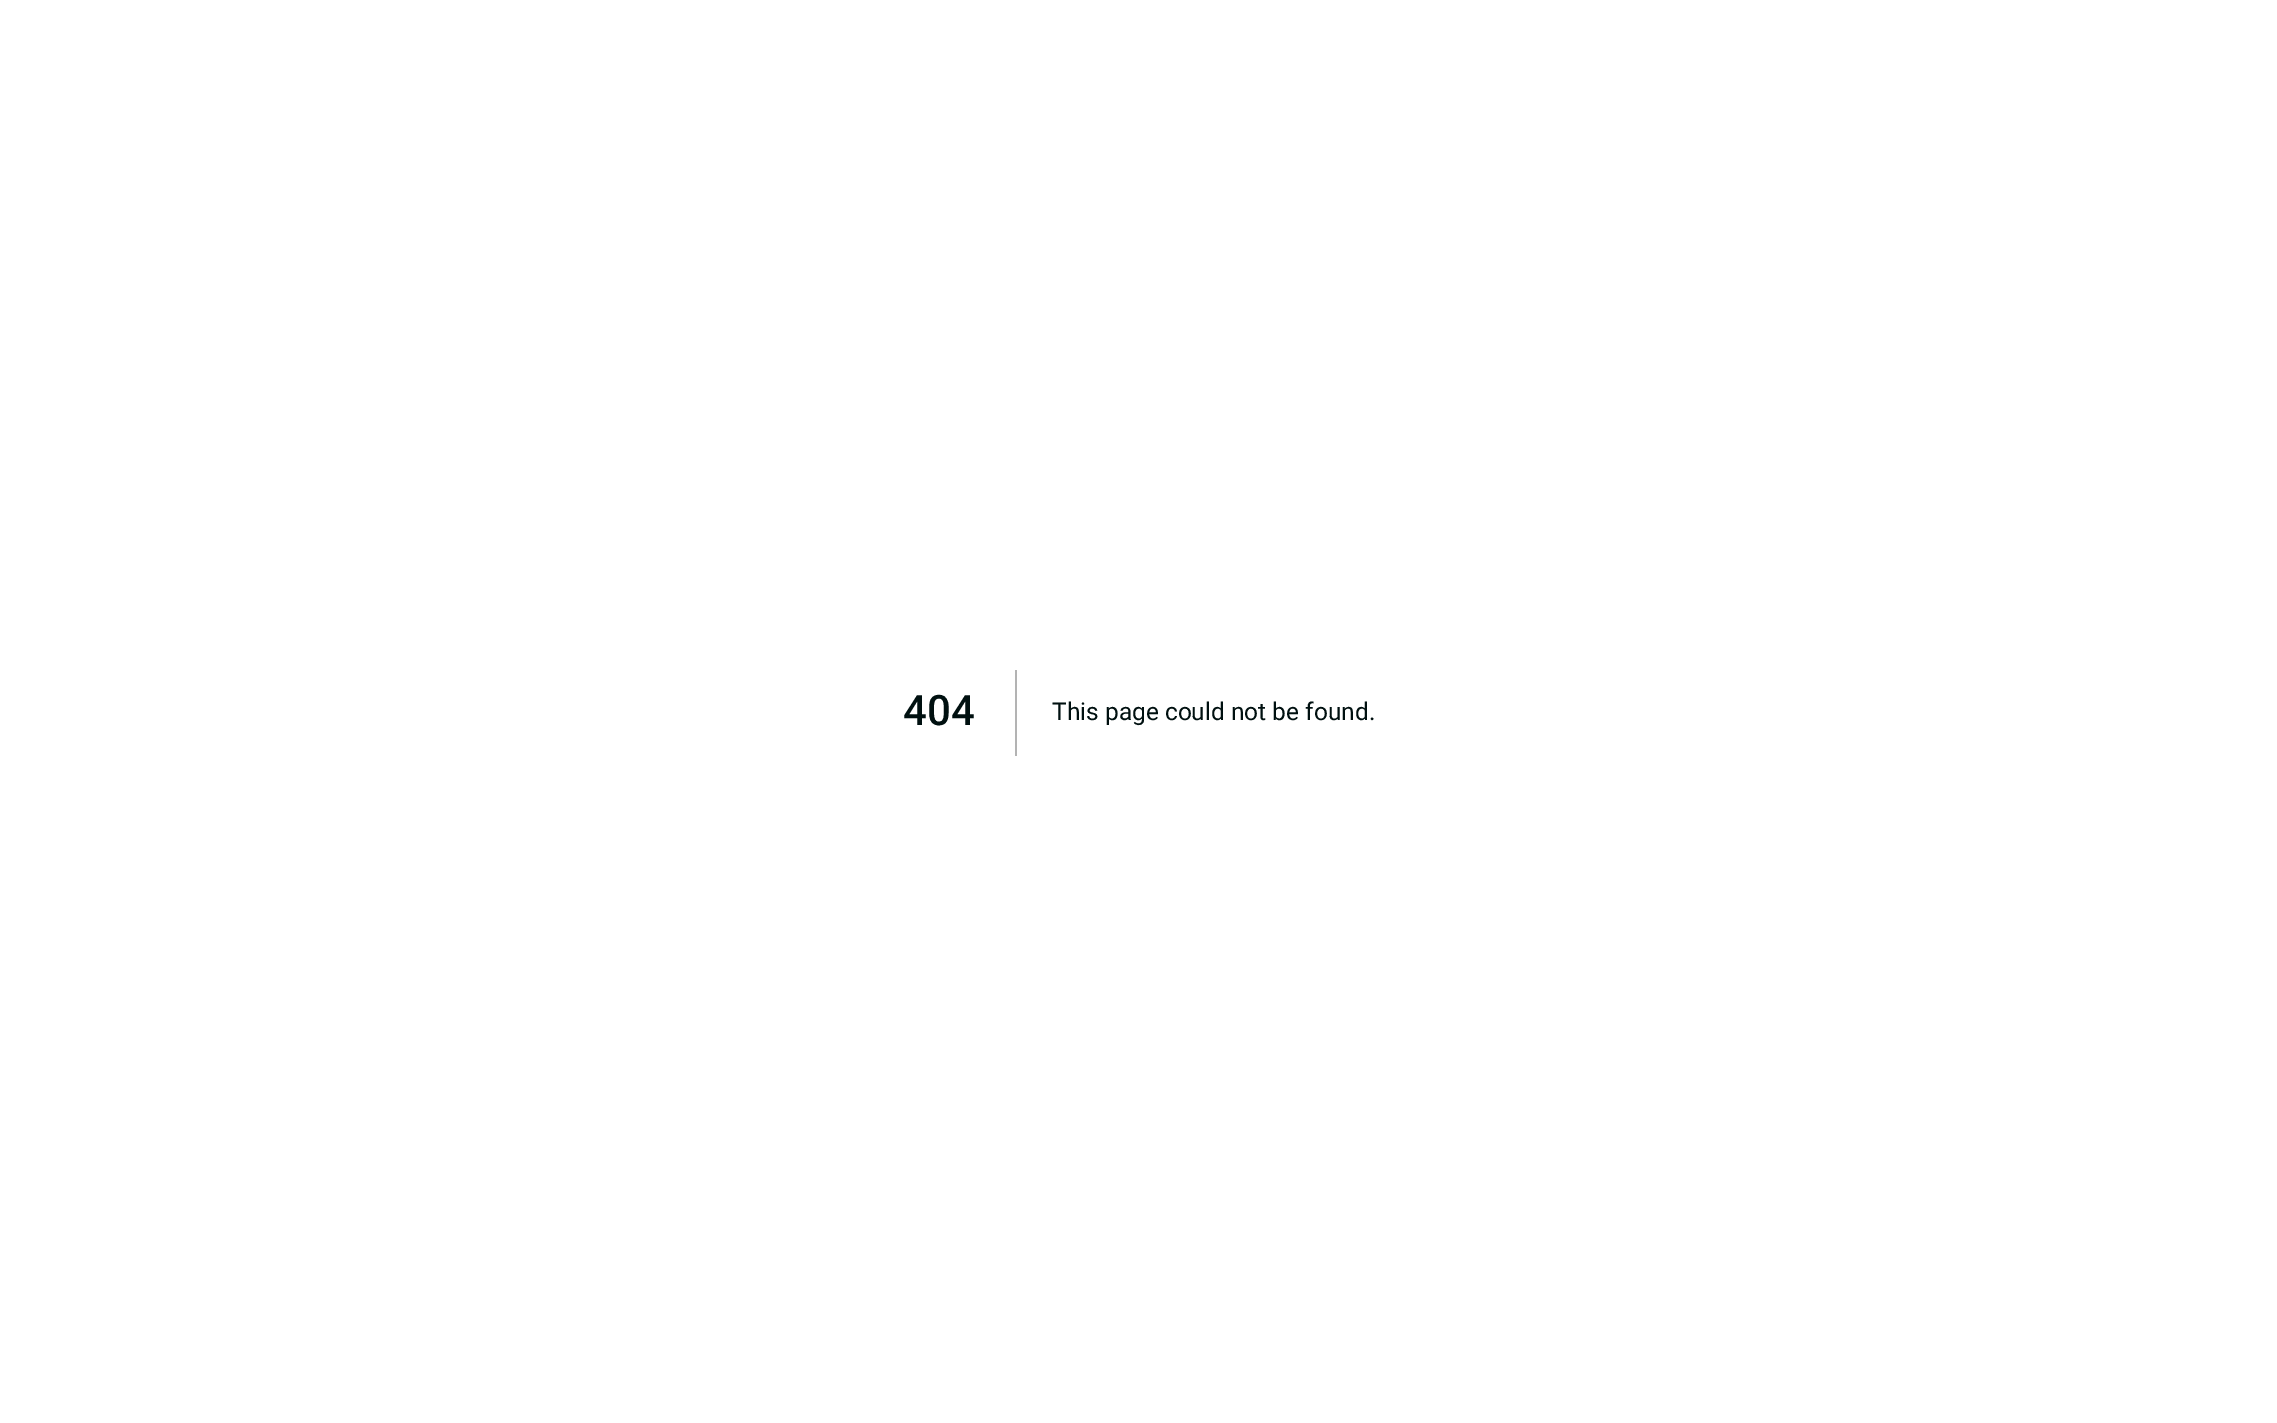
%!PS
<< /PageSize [2277 1423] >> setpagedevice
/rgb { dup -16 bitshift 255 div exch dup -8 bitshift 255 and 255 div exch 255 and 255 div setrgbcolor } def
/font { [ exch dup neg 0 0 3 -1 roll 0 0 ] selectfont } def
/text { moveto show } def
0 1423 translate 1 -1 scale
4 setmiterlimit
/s1 { /Roboto-Medium 42 font 16#001010 rgb } def
/s2 { /Roboto-Regular 24.5 font 16#001010 rgb } def
16#FFFFFF rgb
0 0 2277 1423 rectfill
16#B3B3B3 rgb
1015 670 2 86 rectfill
s1
(404) 903 725 text
s2
(This page could not be found.) 1052 720 text
showpage
